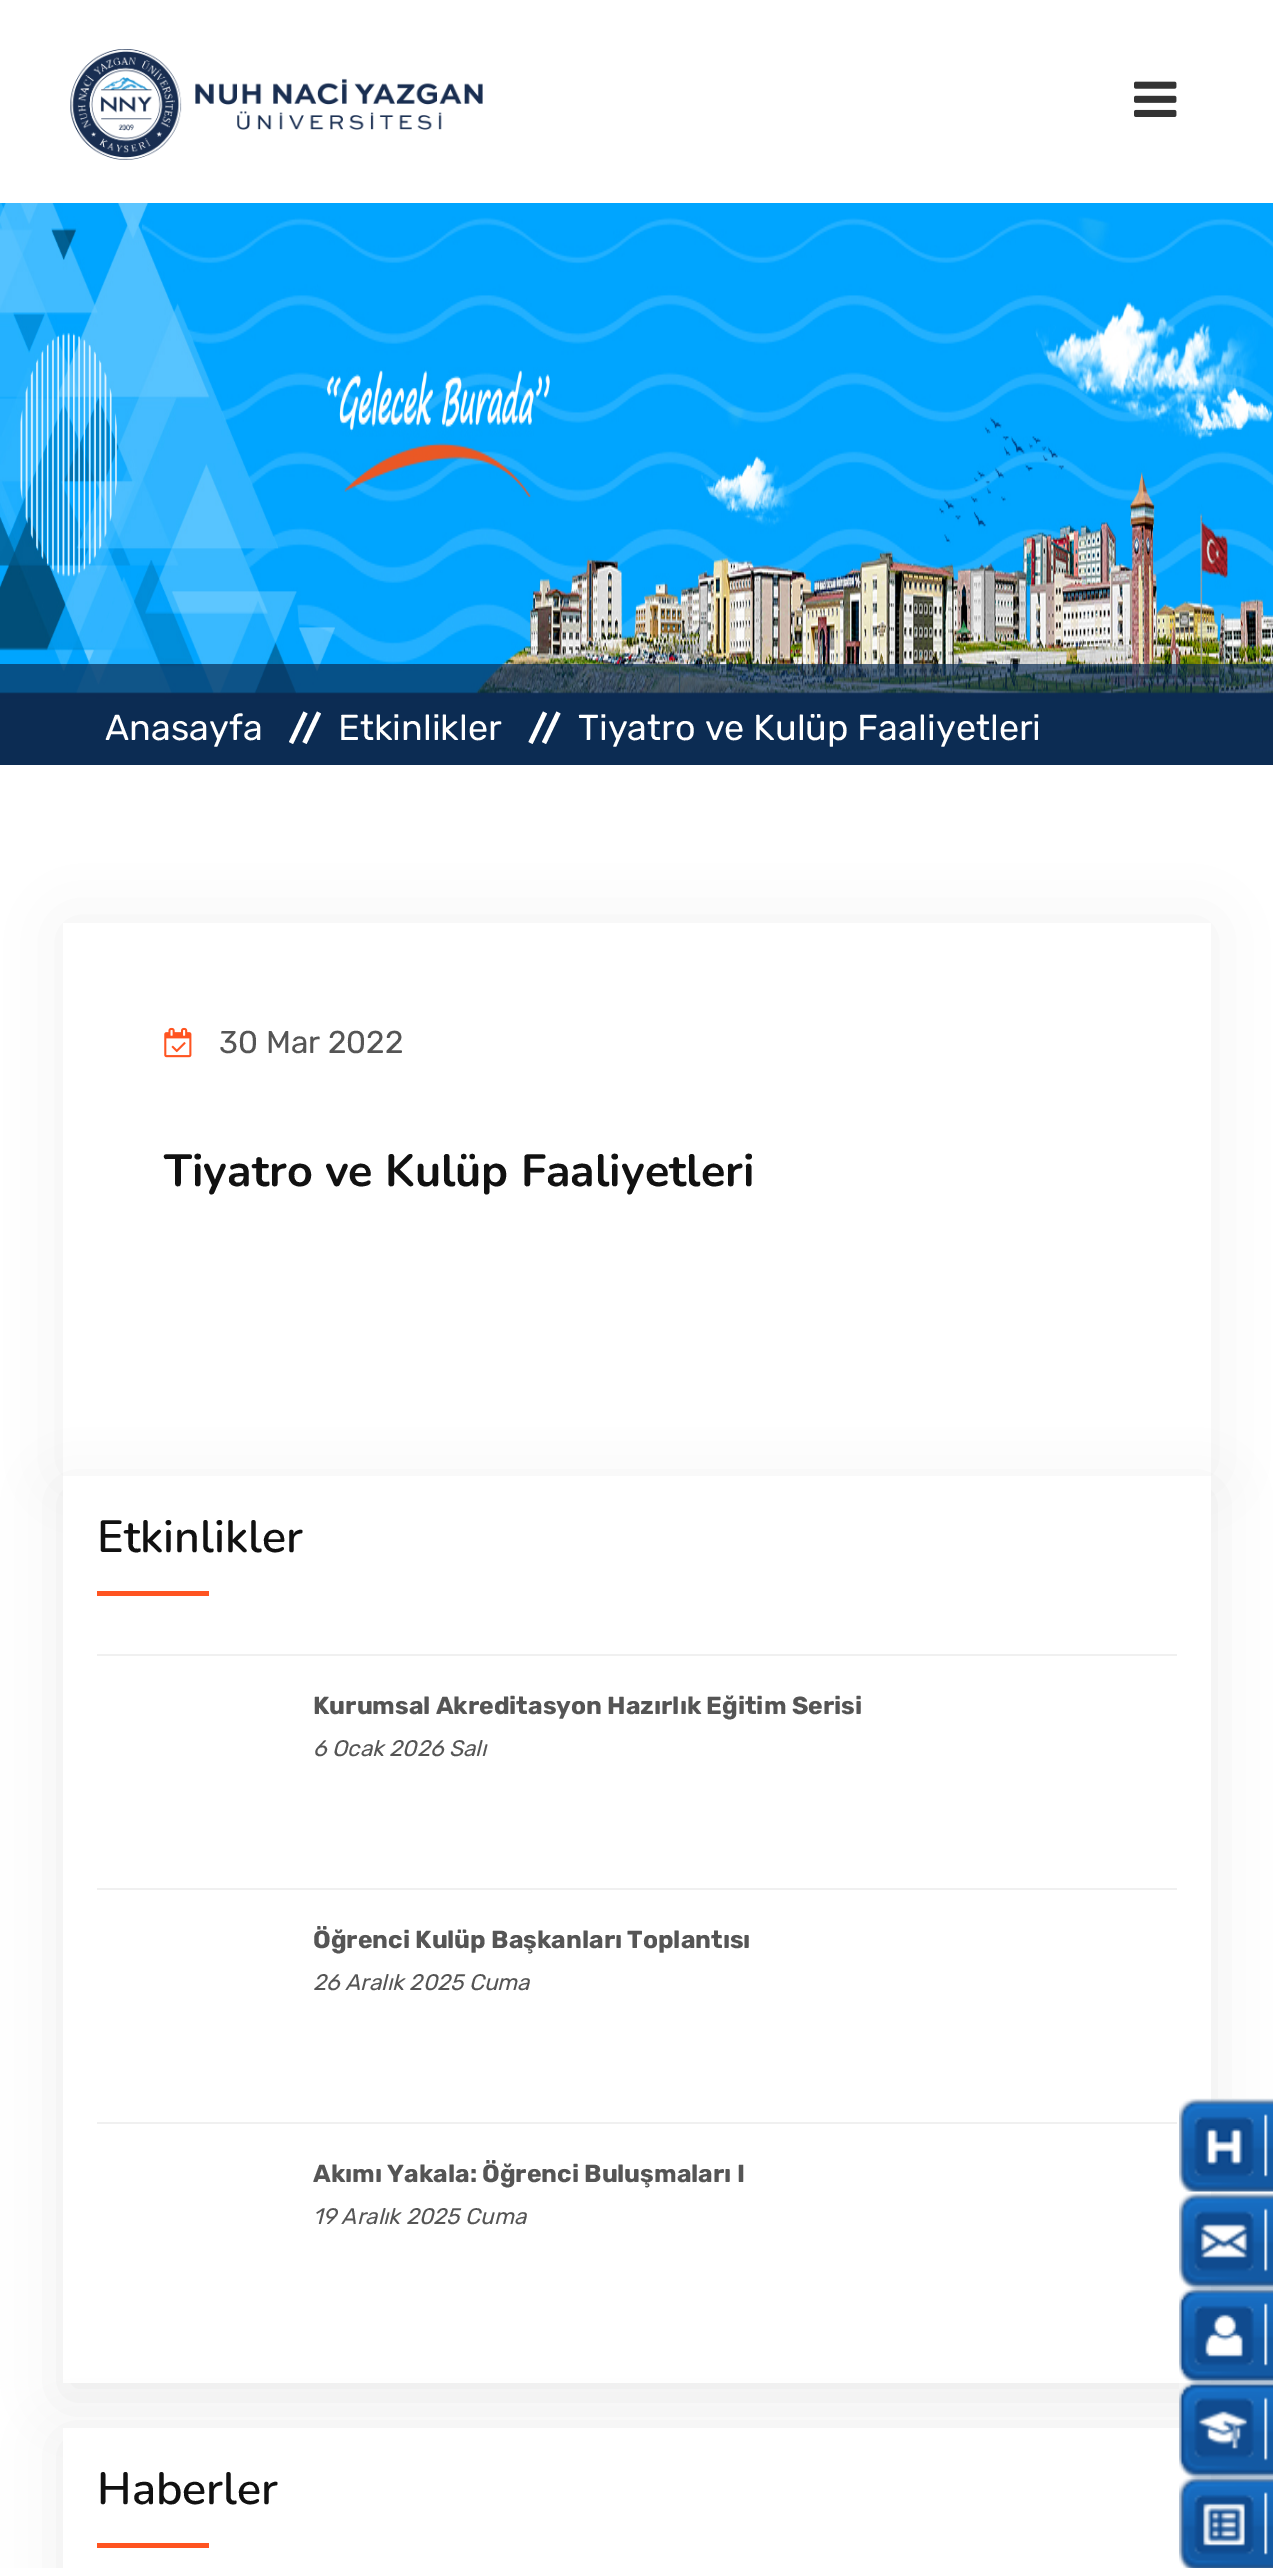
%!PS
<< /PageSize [1273 2568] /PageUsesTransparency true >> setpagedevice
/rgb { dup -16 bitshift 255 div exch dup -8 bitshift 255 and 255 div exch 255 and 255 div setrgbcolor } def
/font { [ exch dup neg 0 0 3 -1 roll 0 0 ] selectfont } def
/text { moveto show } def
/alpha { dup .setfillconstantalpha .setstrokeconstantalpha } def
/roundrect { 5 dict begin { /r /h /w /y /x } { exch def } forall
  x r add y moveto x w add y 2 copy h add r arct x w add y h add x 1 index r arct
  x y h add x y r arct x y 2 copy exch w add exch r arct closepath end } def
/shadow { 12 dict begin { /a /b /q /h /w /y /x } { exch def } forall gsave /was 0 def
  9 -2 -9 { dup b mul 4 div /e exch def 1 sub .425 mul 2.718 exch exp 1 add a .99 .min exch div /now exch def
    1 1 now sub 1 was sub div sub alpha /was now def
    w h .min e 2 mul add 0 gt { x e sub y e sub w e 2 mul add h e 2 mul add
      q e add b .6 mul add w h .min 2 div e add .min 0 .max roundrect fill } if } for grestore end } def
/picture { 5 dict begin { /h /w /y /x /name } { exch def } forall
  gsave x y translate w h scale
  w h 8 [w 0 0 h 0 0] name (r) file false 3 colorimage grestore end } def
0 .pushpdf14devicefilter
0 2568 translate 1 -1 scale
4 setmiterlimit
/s1 { /Rubik-Regular 36 font 16#FFFFFF rgb } def
/s2 { /Rubik-Regular 31.5 font 16#555555 rgb } def
/s3 { /Nunito-Bold 45 font 16#111111 rgb } def
/s4 { /Nunito-SemiBold 45 font 16#111111 rgb } def
/s5 { /Rubik-Bold 24.75 font 16#555555 rgb } def
/s6 { /Rubik-Italic 22.5 font 16#555555 rgb } def
16#FFFFFF rgb
0 0 1273 2568 rectfill
(pic1.raw) 70 49 413 111 picture
(pic2.raw) 1134 81 43 36 picture
(pic3.raw) 0 203 1273 562 picture
0.69 alpha
16#082B53 rgb
0 664 1273 101 rectfill
1 alpha
s1
(Anasayfa) 105 740 text
303.5 711.5 moveto 307.5 713.5 lineto 293 744 lineto 289 742 lineto closepath fill
317 711.5 moveto 321 713.5 lineto 306.5 744 lineto 302.5 742 lineto closepath fill
(Etkinlikler) 338 740 text
543 711.5 moveto 547 713.5 lineto 532.5 744 lineto 528.5 742 lineto closepath fill
556.5 711.5 moveto 560.5 713.5 lineto 546 744 lineto 542 742 lineto closepath fill
(Tiyatro ve Kulüp Faaliyetleri) 578 740 text
16#000000 rgb
63 923 1148 553 0 34 0.05 shadow
16#FFFFFF rgb
63 923 1148 553 rectfill
(pic4.raw) 164 1027 28 31 picture
s2
(30 Mar 2022) 219 1053 text
s3
(Tiyatro ve Kulüp Faaliyetleri) 164 1186 text
16#000000 rgb
63 1490 1148 906 0 28 0.07 shadow
16#FFFFFF rgb
63 1476 1148 907 rectfill
s4
(Etkinlikler) 97 1552 text
16#FF5421 rgb
97 1591 112 5 rectfill
16#F0F0F0 rgb
97 1654 1080 2 rectfill
s5
(Kurumsal Akreditasyon Hazırlık Eğitim Serisi) 313 1714 text
s6
(6 Ocak 2026 Salı) 313 1756 text
16#F0F0F0 rgb
97 1888 1080 2 rectfill
s5
(Öğrenci Kulüp Başkanları Toplantısı) 313 1948 text
s6
(26 Aralık 2025 Cuma) 313 1990 text
16#F0F0F0 rgb
97 2122 1080 2 rectfill
s5
(Akımı Yakala: Öğrenci Buluşmaları I) 313 2182 text
s6
(19 Aralık 2025 Cuma) 313 2224 text
16#000000 rgb
63 2441 1148 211 0 28 0.07 shadow
16#FFFFFF rgb
63 2428 1148 140 rectfill
s4
(Haberler) 97 2504 text
16#FF5421 rgb
97 2543 112 5 rectfill
(pic5.raw) 1179 2098 94 94 picture
(pic6.raw) 1179 2192 94 95 picture
(pic7.raw) 1179 2286 94 95 picture
(pic8.raw) 1179 2380 94 96 picture
(pic9.raw) 1179 2475 94 93 picture
.poppdf14devicefilter showpage
